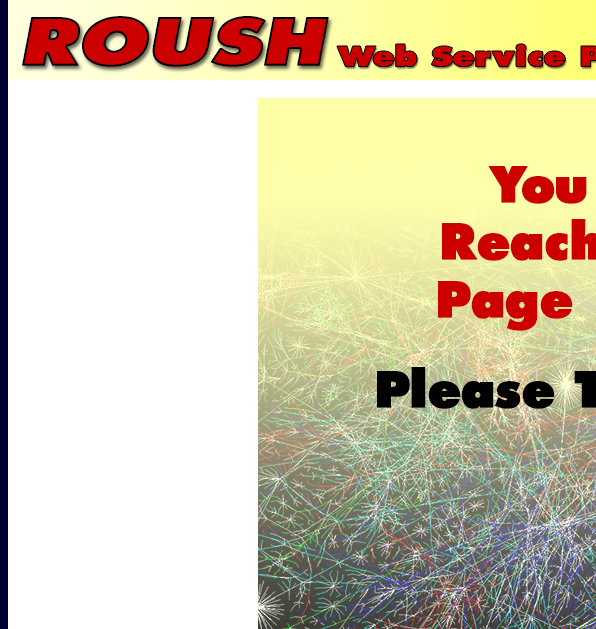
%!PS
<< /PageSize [596 629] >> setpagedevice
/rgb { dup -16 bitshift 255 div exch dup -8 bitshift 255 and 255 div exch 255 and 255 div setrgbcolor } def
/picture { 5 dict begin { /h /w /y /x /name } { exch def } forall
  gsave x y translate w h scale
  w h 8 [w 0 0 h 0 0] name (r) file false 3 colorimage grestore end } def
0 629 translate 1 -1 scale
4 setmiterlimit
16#000033 rgb
0 0 596 629 rectfill
16#FFFFFF rgb
8 80 588 549 rectfill
(pic1.raw) 8 0 588 80 picture
(pic2.raw) 258 98 338 531 picture
showpage
